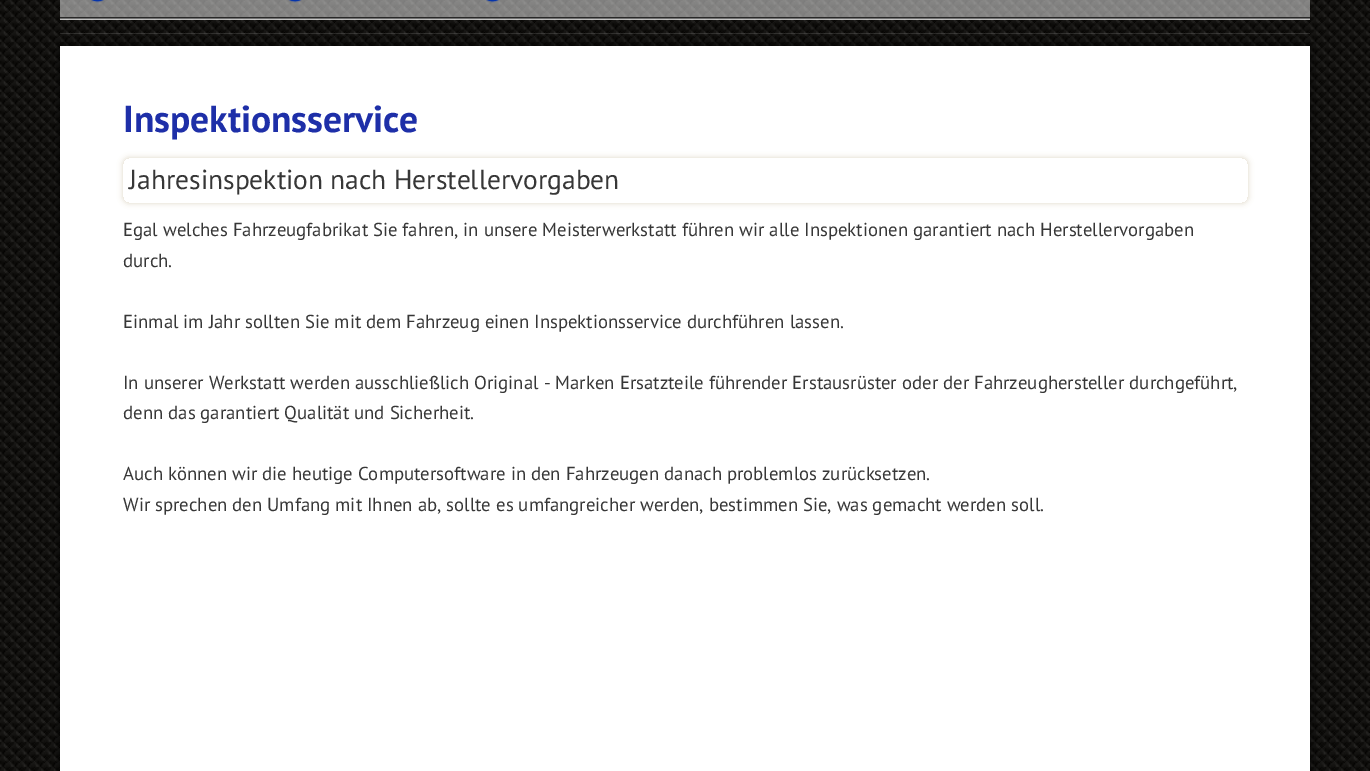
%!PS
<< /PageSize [1370 771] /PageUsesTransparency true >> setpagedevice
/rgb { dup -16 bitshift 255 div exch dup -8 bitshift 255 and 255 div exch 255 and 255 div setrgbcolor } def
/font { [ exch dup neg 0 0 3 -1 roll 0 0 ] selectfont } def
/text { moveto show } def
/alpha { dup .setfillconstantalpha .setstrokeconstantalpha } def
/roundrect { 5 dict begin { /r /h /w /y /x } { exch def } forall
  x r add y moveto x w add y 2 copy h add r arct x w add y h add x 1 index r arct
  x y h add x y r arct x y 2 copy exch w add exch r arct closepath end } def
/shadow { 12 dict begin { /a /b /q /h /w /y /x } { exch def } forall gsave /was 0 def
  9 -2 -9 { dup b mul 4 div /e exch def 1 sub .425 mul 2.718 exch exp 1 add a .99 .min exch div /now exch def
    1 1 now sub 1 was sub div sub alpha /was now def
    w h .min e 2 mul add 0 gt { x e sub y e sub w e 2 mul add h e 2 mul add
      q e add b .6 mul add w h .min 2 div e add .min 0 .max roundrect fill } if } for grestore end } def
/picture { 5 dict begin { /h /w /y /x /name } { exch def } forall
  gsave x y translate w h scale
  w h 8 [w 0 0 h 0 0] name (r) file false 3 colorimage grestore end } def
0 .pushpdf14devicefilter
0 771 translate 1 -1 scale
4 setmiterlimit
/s1 { /PTSans-Bold 37.5 font 16#1E2FA8 rgb } def
/s2 { /PTSans-Regular 27.5 font 16#373737 rgb } def
/s3 { /PTSans-Regular 18.75 font 16#373737 rgb } def
16#FFFFFF rgb
0 0 1370 771 rectfill
(pic1.raw) 0 0 1370 771 picture
(pic2.raw) 60 0 1250 34 picture
(pic3.raw) 91 0 13 3 picture
(pic4.raw) 288 0 14 3 picture
(pic5.raw) 486 0 13 3 picture
16#000000 rgb
60 46 1250 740 0 5 0.7 shadow
16#FFFFFF rgb
60 46 1250 725 rectfill
s1
(Inspektionsservice) 123 132 text
gsave
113 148 moveto 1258 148 lineto 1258 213 lineto 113 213 lineto closepath 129 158 moveto 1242 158 lineto 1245.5 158 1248 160.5 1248 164 curveto 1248 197 lineto 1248 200.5 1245.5 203 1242 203 curveto 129 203 lineto 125.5 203 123 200.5 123 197 curveto 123 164 lineto 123 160.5 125.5 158 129 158 curveto closepath eoclip newpath
16#DFD5C5 rgb
123 158 1125 45 6 3 1 shadow
grestore
s2
(Jahresinspektion nach Herstellervorgaben) 129 189 text
s3
(Egal welches Fahrzeugfabrikat Sie fahren, in unsere Meisterwerkstatt führen wir alle Inspektionen garantiert nach Herstellervorgaben) 123 236 text
(durch.) 123 267 text
(Einmal im Jahr sollten Sie mit dem Fahrzeug einen Inspektionsservice durchführen lassen.) 123 328 text
(In unserer Werkstatt werden ausschließlich Original - Marken Ersatzteile führender Erstausrüster oder der Fahrzeughersteller durchgeführt,) 123 389 text
(denn das garantiert Qualität und Sicherheit.) 123 419 text
(Auch können wir die heutige Computersoftware in den Fahrzeugen danach problemlos zurücksetzen.) 123 480 text
(Wir sprechen den Umfang mit Ihnen ab, sollte es umfangreicher werden, bestimmen Sie, was gemacht werden soll.) 123 511 text
.poppdf14devicefilter showpage
